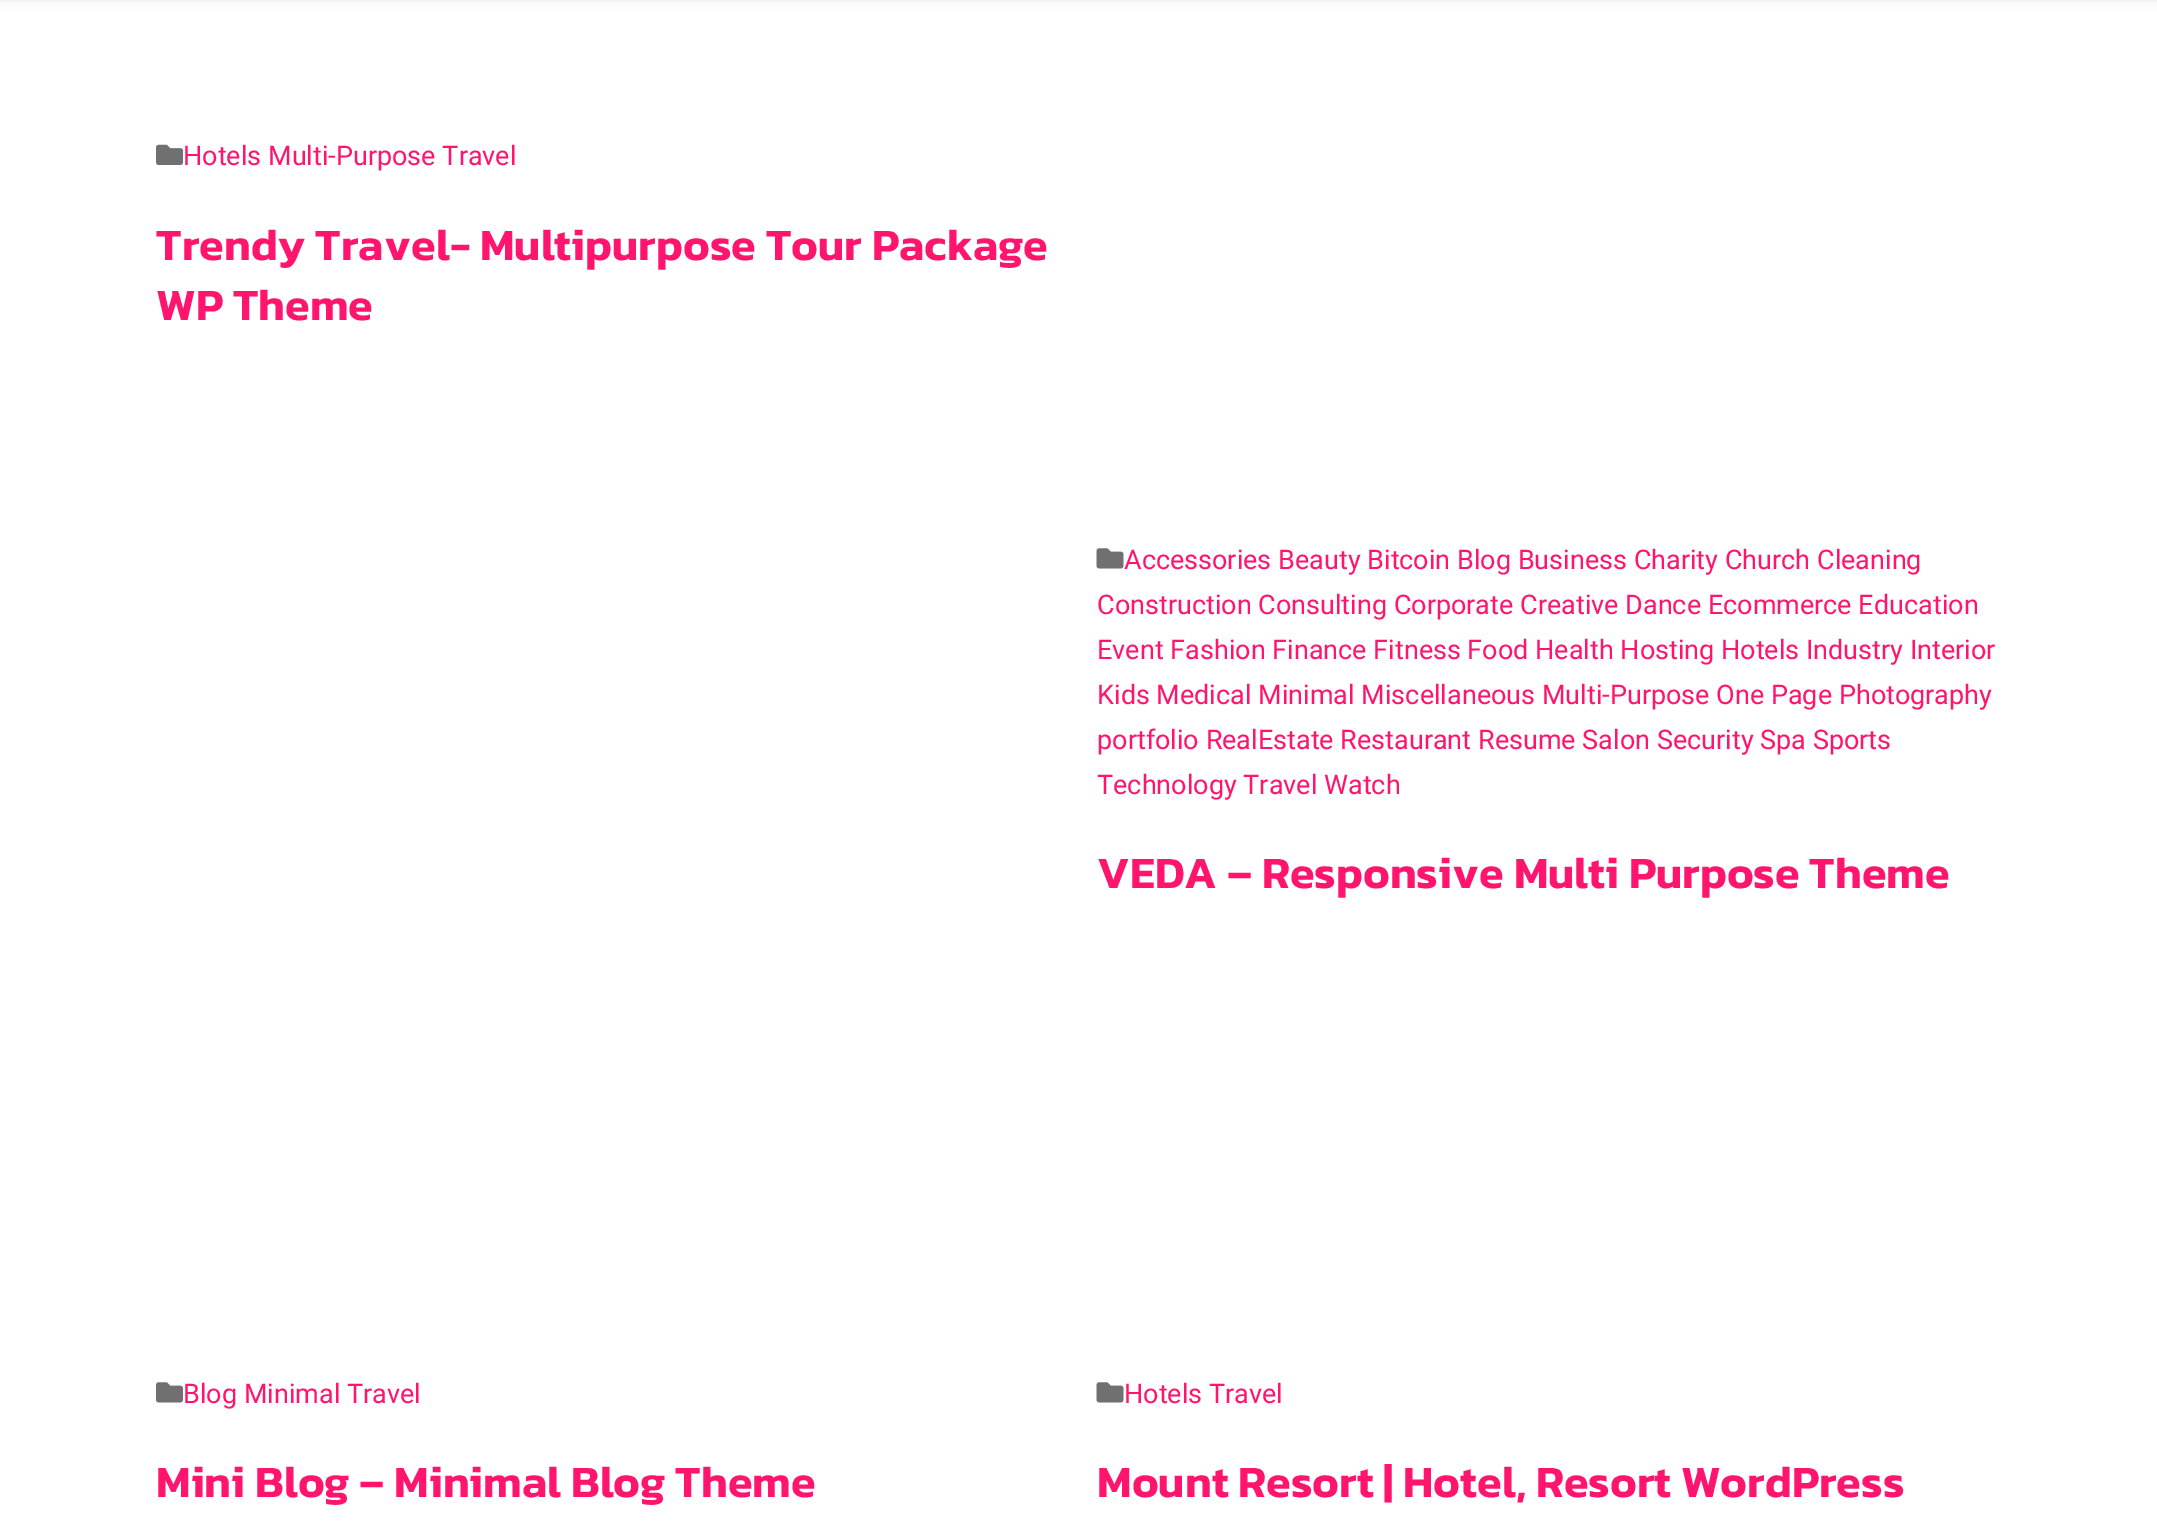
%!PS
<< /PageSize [2157 1527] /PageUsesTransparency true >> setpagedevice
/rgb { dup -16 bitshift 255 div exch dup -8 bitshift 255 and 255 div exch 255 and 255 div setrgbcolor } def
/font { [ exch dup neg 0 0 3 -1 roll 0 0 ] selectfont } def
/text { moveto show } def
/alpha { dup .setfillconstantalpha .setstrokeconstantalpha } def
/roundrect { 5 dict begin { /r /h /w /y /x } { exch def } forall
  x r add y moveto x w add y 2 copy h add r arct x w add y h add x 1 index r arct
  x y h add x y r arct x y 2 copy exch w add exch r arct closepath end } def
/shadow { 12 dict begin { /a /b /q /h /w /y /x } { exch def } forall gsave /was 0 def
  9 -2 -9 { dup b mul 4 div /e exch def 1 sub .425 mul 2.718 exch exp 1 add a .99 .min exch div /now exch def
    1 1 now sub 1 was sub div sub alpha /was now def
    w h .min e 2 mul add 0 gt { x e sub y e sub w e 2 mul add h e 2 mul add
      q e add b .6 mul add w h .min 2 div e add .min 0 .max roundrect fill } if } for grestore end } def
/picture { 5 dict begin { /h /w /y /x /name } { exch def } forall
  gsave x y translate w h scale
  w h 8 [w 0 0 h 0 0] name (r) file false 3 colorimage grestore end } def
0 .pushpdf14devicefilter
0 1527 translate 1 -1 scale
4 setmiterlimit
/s1 { /Roboto-Regular 27 font 16#FF156E rgb } def
/s2 { /Kanit-SemiBold 45 font 16#FF156E rgb } def
16#FFFFFF rgb
0 0 2157 1527 rectfill
16#000000 rgb
-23 -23 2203 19 0 7.5 0.15 shadow
(pic1.raw) 156 144 27 21 picture
s1
(Hotels Multi-Purpose Travel) 183 165 text
s2
(Trendy Travel- Multipurpose Tour Package) 156 260 text
(WP Theme) 156 320 text
(pic2.raw) 1096 548 28 21 picture
s1
(Accessories Beauty Bitcoin Blog Business Charity Church Cleaning) 1124 569 text
(Construction Consulting Corporate Creative Dance Ecommerce Education) 1097 614 text
(Event Fashion Finance Fitness Food Health Hosting Hotels Industry Interior) 1097 659 text
(Kids Medical Minimal Miscellaneous Multi-Purpose One Page Photography) 1097 704 text
(portfolio RealEstate Restaurant Resume Salon Security Spa Sports) 1097 749 text
(Technology Travel Watch) 1097 794 text
s2
(VEDA – Responsive Multi Purpose Theme) 1097 888 text
(pic3.raw) 156 1382 27 21 picture
s1
(Blog Minimal Travel) 183 1403 text
s2
(Mini Blog – Minimal Blog Theme) 156 1497 text
(pic2.raw) 1096 1382 28 21 picture
s1
(Hotels Travel) 1124 1403 text
s2
(Mount Resort | Hotel, Resort WordPress) 1097 1497 text
.poppdf14devicefilter showpage
